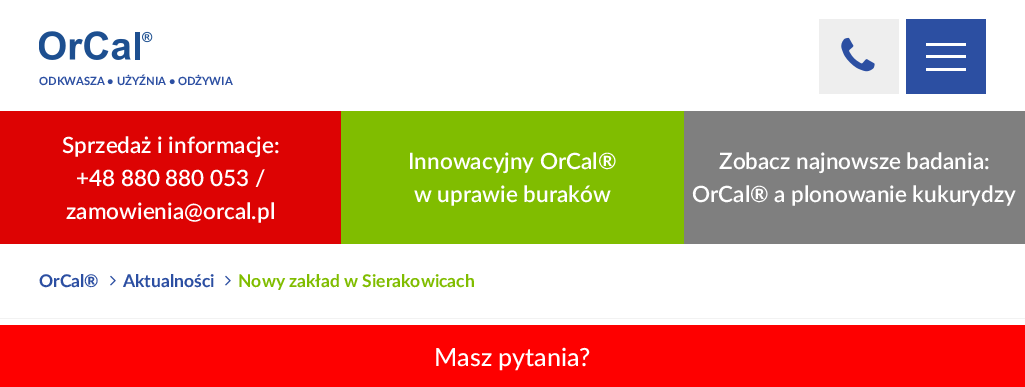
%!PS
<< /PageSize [1025 387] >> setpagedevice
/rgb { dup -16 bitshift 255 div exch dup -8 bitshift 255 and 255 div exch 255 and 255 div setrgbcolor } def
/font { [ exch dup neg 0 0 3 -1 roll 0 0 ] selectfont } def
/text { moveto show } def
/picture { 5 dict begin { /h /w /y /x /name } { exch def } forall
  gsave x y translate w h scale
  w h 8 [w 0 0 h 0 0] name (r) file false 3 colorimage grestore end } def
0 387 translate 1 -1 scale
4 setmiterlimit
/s1 { /Lato-Bold 11.25 font 16#2C4FA2 rgb } def
/s2 { /Lato-SemiBold 22.5 font 16#FFFFFF rgb } def
/s3 { /Lato-Bold 17.5 font 16#2C4FA2 rgb } def
/s4 { /Lato-Bold 17.5 font 16#80BD00 rgb } def
/s5 { /Lato-Medium 25 font 16#FFFFFF rgb } def
16#FFFFFF rgb
0 0 1025 387 rectfill
(pic1.raw) 39 31 114 29 picture
s1
(ODKWASZA • UŻYŹNIA • ODŻYWIA) 39 85 text
16#EEEEEE rgb
819 19 80 75 rectfill
(pic2.raw) 841 37 34 35 picture
16#2C4FA2 rgb
906 19 80 75 rectfill
16#FFFFFF rgb
926 55 40 3 rectfill
926 43 40 3 rectfill
926 68 40 3 rectfill
16#DD0303 rgb
0 111 341 133 rectfill
s2
(Sprzedaż i informacje:) 62 153 text
(+48 880 880 053 /) 76 186 text
(zamowienia@orcal.pl) 66 219 text
16#80BD00 rgb
341 111 343 133 rectfill
s2
(Innowacyjny OrCal®) 408 169 text
(w uprawie buraków) 414 202 text
16#7F7F7F rgb
684 111 341 133 rectfill
s2
(Zobacz najnowsze badania:) 719 169 text
(OrCal® a plonowanie kukurydzy) 692 202 text
16#F2F2F2 rgb
0 318 1025 1 rectfill
s3
(OrCal®) 39 287 text
(pic3.raw) 110 275 6 11 picture
(Aktualności) 123 287 text
(pic3.raw) 225 275 6 11 picture
s4
(Nowy zakład w Sierakowicach) 238 287 text
16#FE0000 rgb
0 325 1025 62 rectfill
s5
(Masz pytania?) 434 366 text
showpage
